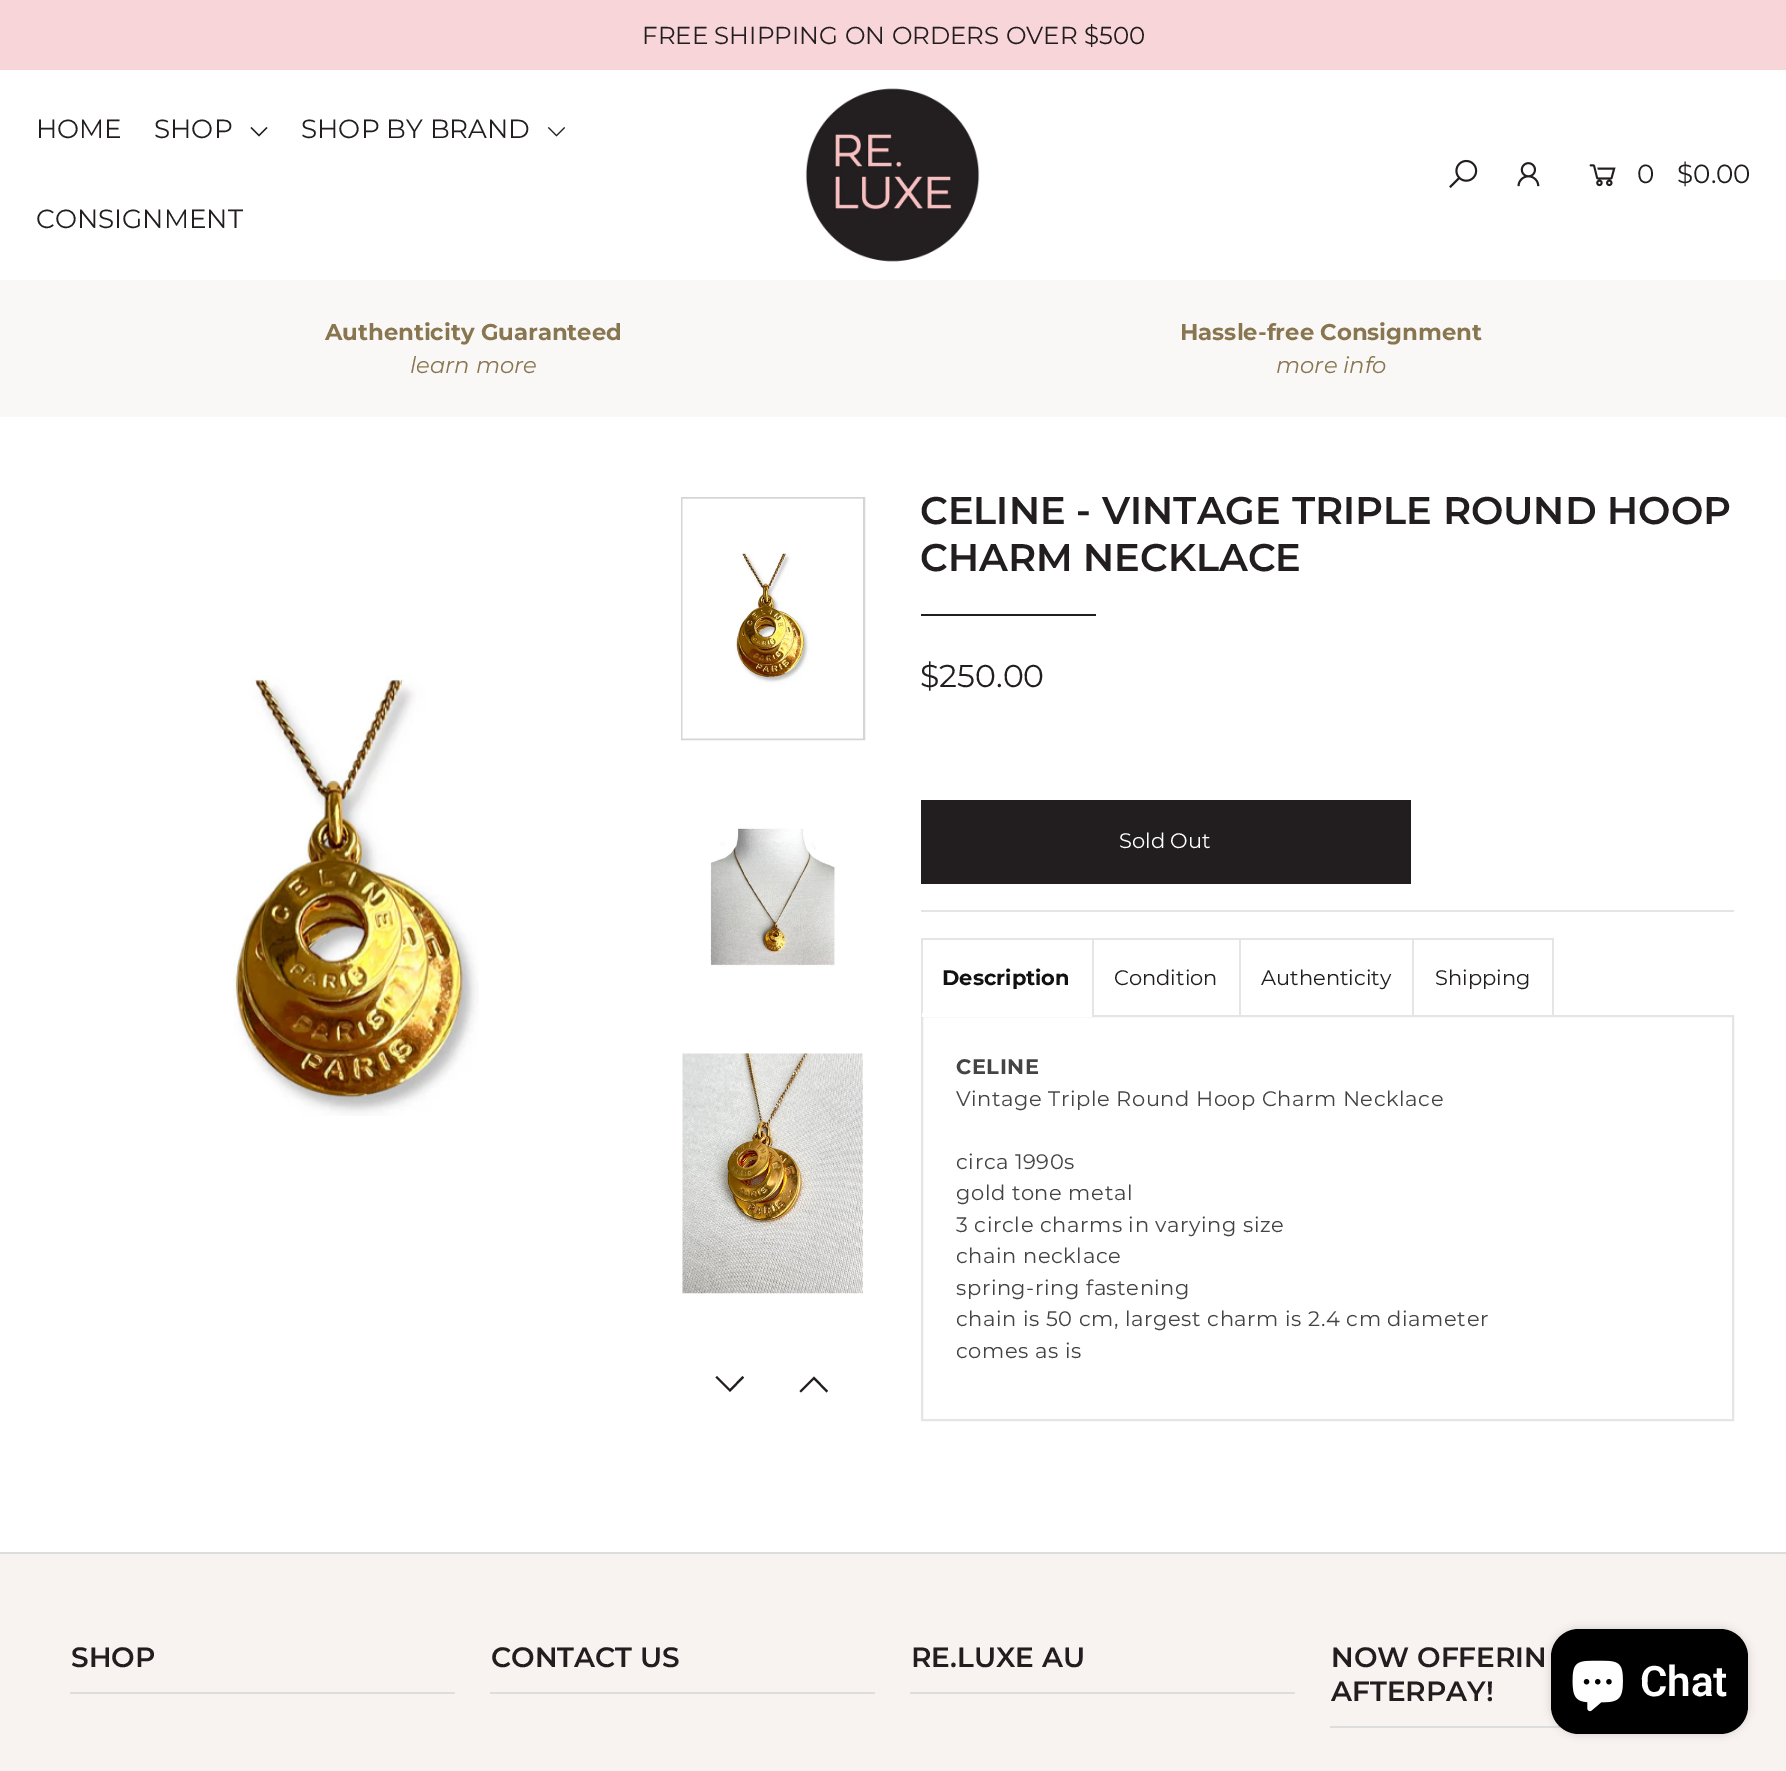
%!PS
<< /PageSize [1786 1771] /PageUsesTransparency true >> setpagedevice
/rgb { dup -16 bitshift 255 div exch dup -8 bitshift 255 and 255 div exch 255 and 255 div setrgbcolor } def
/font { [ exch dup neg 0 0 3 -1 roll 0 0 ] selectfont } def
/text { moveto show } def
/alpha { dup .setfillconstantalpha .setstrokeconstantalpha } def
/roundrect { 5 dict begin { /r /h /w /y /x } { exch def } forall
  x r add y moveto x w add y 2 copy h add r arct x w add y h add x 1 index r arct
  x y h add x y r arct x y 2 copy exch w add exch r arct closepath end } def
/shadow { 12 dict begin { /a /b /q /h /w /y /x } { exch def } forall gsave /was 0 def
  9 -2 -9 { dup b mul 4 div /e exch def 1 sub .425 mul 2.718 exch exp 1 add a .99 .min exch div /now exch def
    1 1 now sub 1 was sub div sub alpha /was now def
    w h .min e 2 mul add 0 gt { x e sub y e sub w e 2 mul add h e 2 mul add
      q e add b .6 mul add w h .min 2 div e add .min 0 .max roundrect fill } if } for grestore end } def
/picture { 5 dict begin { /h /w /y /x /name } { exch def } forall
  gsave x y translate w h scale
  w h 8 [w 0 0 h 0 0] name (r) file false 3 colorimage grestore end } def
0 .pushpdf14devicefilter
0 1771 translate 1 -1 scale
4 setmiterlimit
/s1 { /Montserrat-Regular 24.5 font 16#221E1F rgb } def
/s2 { /Montserrat-Regular 26.25 font 16#221E1F rgb } def
/s3 { /Montserrat-Bold 22.75 font 16#887650 rgb } def
/s4 { /Montserrat-Italic 22.75 font 16#887650 rgb } def
/s5 { /Montserrat-SemiBold 38.5 font 16#221E1F rgb } def
/s6 { /Montserrat-Regular 31.5 font 16#221E1F rgb } def
/s7 { /Montserrat-Regular 21 font 16#FFFFFF rgb } def
/s8 { /Montserrat-Bold 21 font 16#111111 rgb } def
/s9 { /Montserrat-Regular 21 font 16#221E1F rgb } def
/s10 { /Montserrat-SemiBold 28 font 16#221E1F rgb } def
/s11 { /Roboto-SemiBold 42 font 16#FFFFFF rgb } def
16#FFFFFF rgb
0 0 1786 1771 rectfill
16#F7D5D8 rgb
0 0 1786 70 rectfill
s1
(FREE SHIPPING ON ORDERS OVER $500) 642 44 text
s2
(HOME) 36 138 text
(SHOP) 154 138 text
251.5 127 moveto 259 134.5 lineto 266.5 127 lineto 267.5 128 lineto 259 136.5 lineto 250.5 128 lineto closepath fill
(SHOP BY BRAND) 301 138 text
(pic1.raw) 547 127 19 10 picture
(CONSIGNMENT) 36 228 text
(pic2.raw) 805 88 175 174 picture
(pic3.raw) 1449 159 29 29 picture
(pic4.raw) 1517 162 23 25 picture
(pic5.raw) 1589 164 27 23 picture
(0) 1637 183 text
($0.00) 1677 183 text
16#FAF8F7 rgb
0 280 1786 137 rectfill
s3
(Authenticity Guaranteed) 325 340 text
s4
(learn more) 410 373 text
s3
(Hassle-free Consignment) 1180 340 text
s4
(more info) 1276 373 text
(pic6.raw) 233 675 246 441 picture
16#D5D5D5 rgb
2 setlinewidth
682 498 182 241 rectstroke
(pic7.raw) 682 498 181 241 picture
(pic8.raw) 710 827 126 140 picture
(pic9.raw) 682 1053 181 241 picture
16#221E1F rgb
717 1376 moveto 730 1389 lineto 742.5 1376 lineto 744 1377.5 lineto 730 1392 lineto 715.5 1377.5 lineto closepath fill
814 1376.5 moveto 828 1391 lineto 826.5 1392.5 lineto 814 1379.5 lineto 801 1392.5 lineto 799.5 1391 lineto closepath fill
s5
(CELINE - VINTAGE TRIPLE ROUND HOOP) 920 524 text
(CHARM NECKLACE) 920 571 text
921 614 175 2 rectfill
16#E5E5E5 rgb
921 910 813 2 rectfill
s6
($250.00) 920 687 text
921 800 490 84 rectfill
s7
(Sold Out) 1119 848 text
16#E5E5E5 rgb
921 938 633 2 rectfill
1092 938 2 77 rectfill
921 938 2 77 rectfill
s8
(Description) 942 985 text
16#E5E5E5 rgb
922 1016 811 404 rectstroke
16#FFFFFF rgb
922 1013 170 4 rectfill
16#E5E5E5 rgb
1239 938 2 77 rectfill
s9
(Condition) 1114 985 text
16#E5E5E5 rgb
1412 938 2 77 rectfill
s9
(Authenticity) 1261 985 text
16#E5E5E5 rgb
1552 938 2 77 rectfill
s9
(Shipping) 1435 985 text
/Montserrat-Bold 21 font
16#444444 rgb
956 1074 moveto 0.55 0 (CELINE) ashow
/Montserrat-Regular 21 font
956 1106 moveto 0.55 0 (Vintage Triple Round Hoop Charm Necklace) ashow
956 1169 moveto 0.55 0 (circa 1990s) ashow
956 1200 moveto 0.55 0 (gold tone metal) ashow
956 1232 moveto 0.55 0 (3 circle charms in varying size) ashow
956 1263 moveto 0.55 0 (chain necklace) ashow
956 1295 moveto 0.55 0 (spring-ring fastening) ashow
956 1326 moveto 0.55 0 (chain is 50 cm, largest charm is 2.4 cm diameter) ashow
956 1358 moveto 0.55 0 (comes as is) ashow
16#F8F3F0 rgb
0 1554 1786 217 rectfill
16#DDDDDD rgb
0 1552 1786 2 rectfill
70 1692 385 2 rectfill
s10
(SHOP) 71 1667 text
16#DDDDDD rgb
490 1692 385 2 rectfill
s10
(CONTACT US) 491 1667 text
16#DDDDDD rgb
910 1692 385 2 rectfill
s10
(RE.LUXE AU) 911 1667 text
16#DDDDDD rgb
1330 1726 232 2 rectfill
s10
(NOW OFFERIN) 1331 1667 text
(AFTERPAY!) 1331 1701 text
16#000000 rgb
1551 1629 197 105 28 4.5 0.15 shadow
1551 1629 197 105 28 roundrect fill
(pic10.raw) 1572 1660 51 52 picture
s11
(Chat) 1640 1696 text
.poppdf14devicefilter showpage
